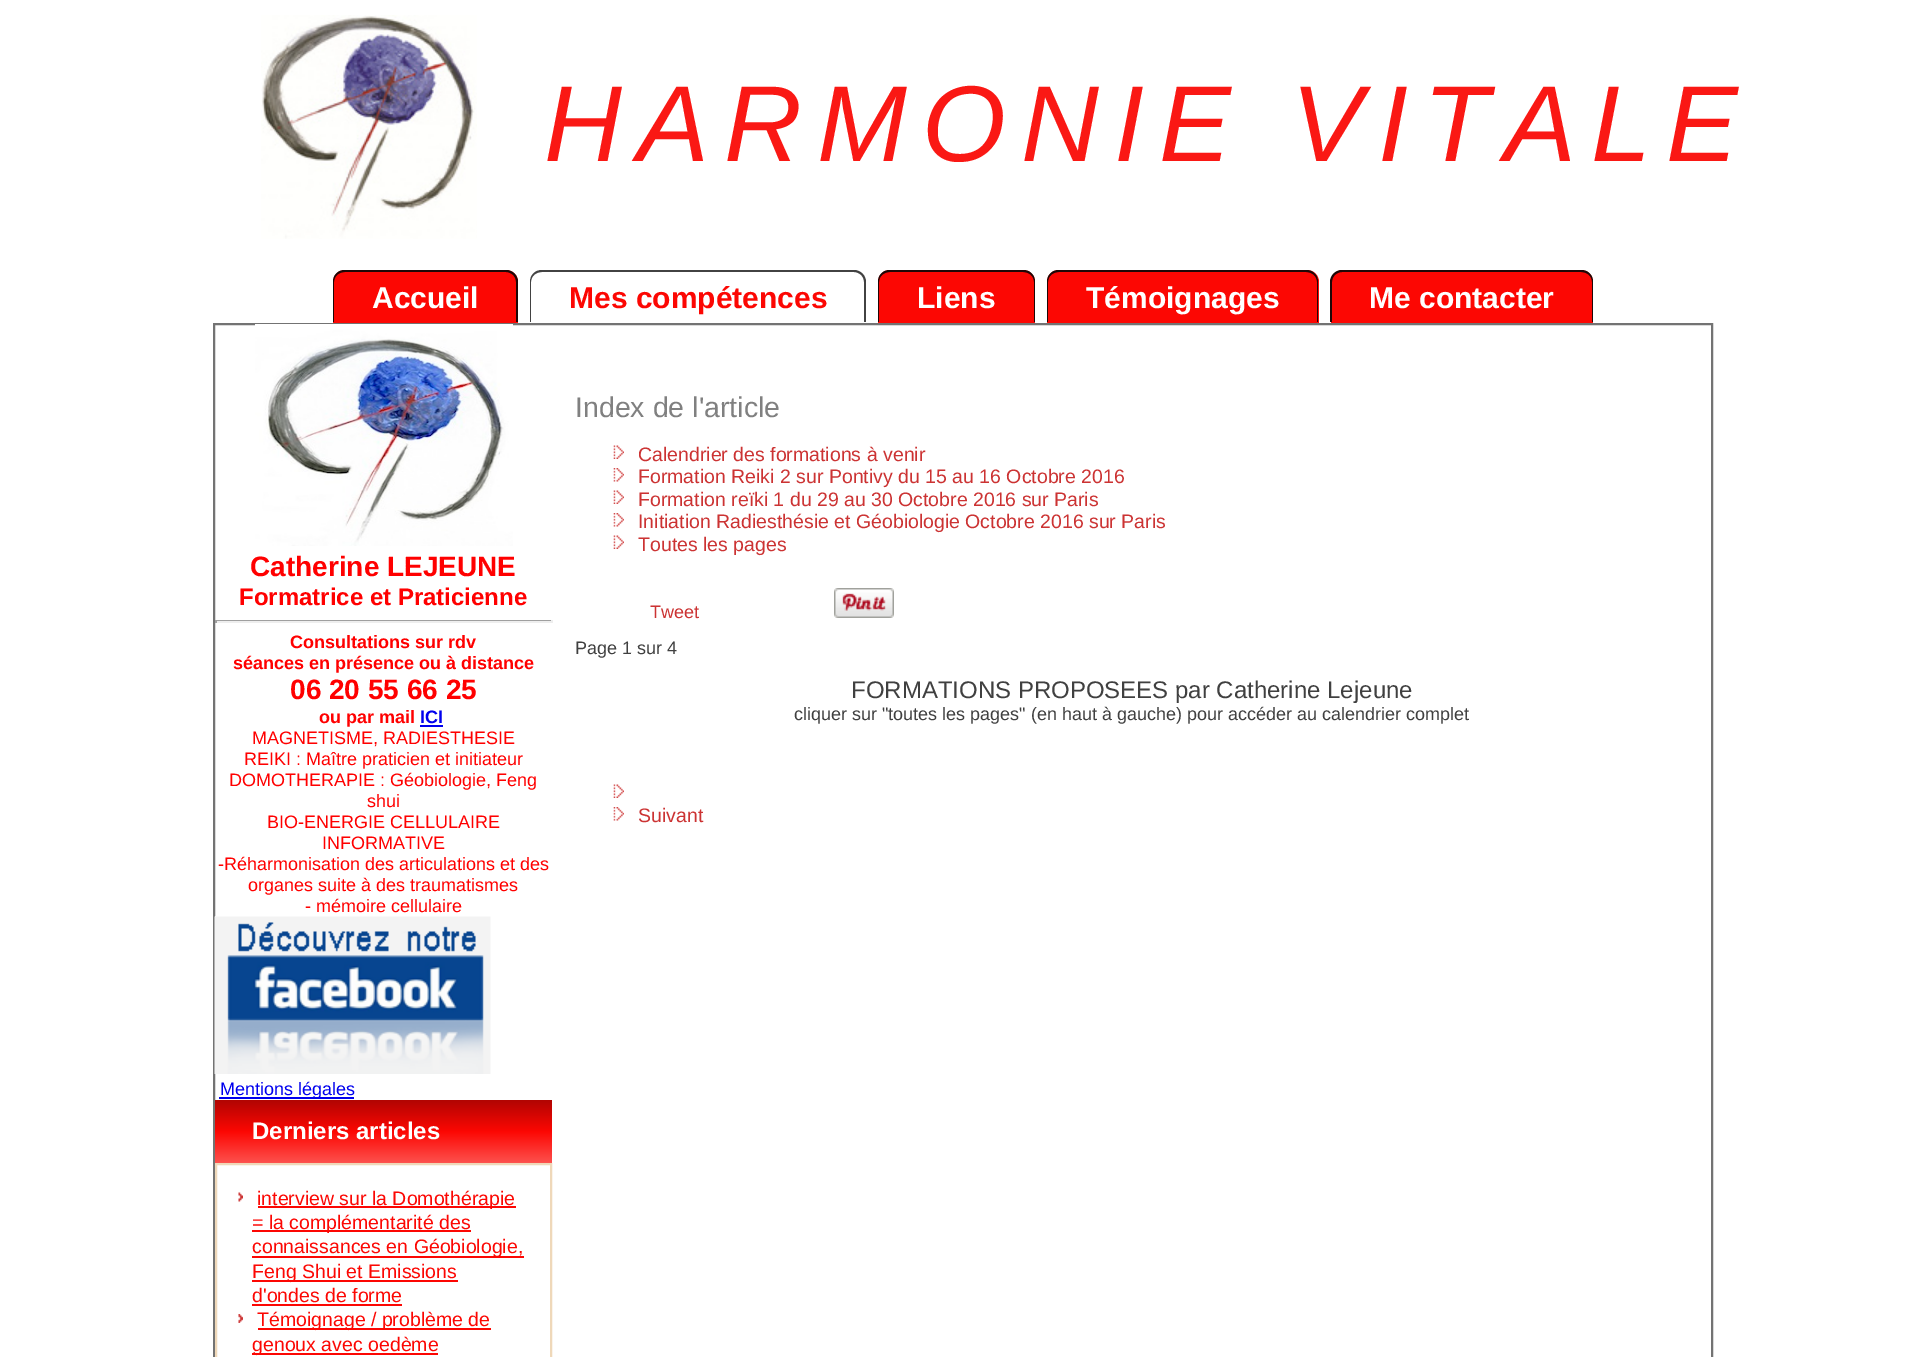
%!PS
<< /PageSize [1926 1357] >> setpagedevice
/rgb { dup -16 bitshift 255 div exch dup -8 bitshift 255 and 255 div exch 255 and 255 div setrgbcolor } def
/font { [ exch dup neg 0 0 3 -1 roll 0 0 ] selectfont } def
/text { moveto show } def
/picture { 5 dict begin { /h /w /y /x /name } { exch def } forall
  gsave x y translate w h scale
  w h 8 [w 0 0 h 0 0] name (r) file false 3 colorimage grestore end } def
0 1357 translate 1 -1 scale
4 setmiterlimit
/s1 { /LiberationSans-Bold 30 font 16#FFFFFF rgb } def
/s2 { /LiberationSans-Bold 30 font 16#FC0703 rgb } def
/s3 { /LiberationSans-Bold 28 font 16#FF0000 rgb } def
/s4 { /LiberationSans-Bold 24 font 16#FF0000 rgb } def
/s5 { /LiberationSans-Bold 18 font 16#FF0000 rgb } def
/s6 { /LiberationSans-Bold 18 font 16#0000EE rgb } def
/s7 { /LiberationSans-Regular 18 font 16#FF0000 rgb } def
/s8 { /LiberationSans-Regular 18 font 16#0000EE rgb } def
/s9 { /LiberationSans-Bold 24 font 16#FFFFFF rgb } def
/s10 { /LiberationSans-Regular 19.5 font 16#FC0703 rgb } def
/s11 { /LiberationSans-Regular 28.5 font 16#808080 rgb } def
/s12 { /LiberationSans-Regular 19.5 font 16#CC3333 rgb } def
/s13 { /LiberationSans-Regular 18 font 16#CC3333 rgb } def
/s14 { /LiberationSans-Regular 18 font 16#404040 rgb } def
/s15 { /LiberationSans-Regular 24 font 16#404040 rgb } def
16#FFFFFF rgb
0 0 1926 1357 rectfill
(pic1.raw) 261 15 216 224 picture
/LiberationSans-Italic 108 font
16#FA1814 rgb
544 161 moveto 15 0 (HARMONIE VITALE) ashow
16#FC0703 rgb
345 270 moveto 506 270 lineto 512.5 270 518 275.5 518 282 curveto 518 323 lineto 333 323 lineto 333 282 lineto 333 275.5 338.5 270 345 270 curveto closepath fill
16#1D0707 rgb
345 270 moveto 506 270 lineto 512 270 518 275 518 282 curveto 518 322 lineto 333 322 lineto 333 282 lineto 333 275 338 270 345 270 curveto closepath 345 272 moveto 506 272 lineto 511 272 516 276 516 282 curveto 516 322 lineto 334 322 lineto 334 282 lineto 334 276 339 272 345 272 curveto closepath eofill
s1
(Accueil) 372 308 text
16#424242 rgb
542 270 moveto 854 270 lineto 860 270 866 275 866 282 curveto 866 322 lineto 530 322 lineto 530 282 lineto 530 275 535 270 542 270 curveto closepath 542 272 moveto 854 272 lineto 859 272 864 276 864 282 curveto 864 322 lineto 531 322 lineto 531 282 lineto 531 276 536 272 542 272 curveto closepath eofill
s2
(Mes compétences) 569 308 text
890 270 moveto 1023 270 lineto 1029.5 270 1035 275.5 1035 282 curveto 1035 323 lineto 878 323 lineto 878 282 lineto 878 275.5 883.5 270 890 270 curveto closepath fill
16#1D0707 rgb
890 270 moveto 1023 270 lineto 1030 270 1035 275 1035 282 curveto 1035 322 lineto 878 322 lineto 878 282 lineto 878 275 883 270 890 270 curveto closepath 890 272 moveto 1023 272 lineto 1029 272 1034 276 1034 282 curveto 1034 322 lineto 879 322 lineto 879 282 lineto 879 276 884 272 890 272 curveto closepath eofill
s1
(Liens) 917 308 text
16#FC0703 rgb
1059 270 moveto 1307 270 lineto 1313.5 270 1319 275.5 1319 282 curveto 1319 323 lineto 1047 323 lineto 1047 282 lineto 1047 275.5 1052.5 270 1059 270 curveto closepath fill
16#1D0707 rgb
1059 270 moveto 1306 270 lineto 1313 270 1318 275 1318 282 curveto 1318 322 lineto 1047 322 lineto 1047 282 lineto 1047 275 1052 270 1059 270 curveto closepath 1059 272 moveto 1306 272 lineto 1312 272 1317 276 1317 282 curveto 1317 322 lineto 1048 322 lineto 1048 282 lineto 1048 276 1053 272 1059 272 curveto closepath eofill
s1
(Témoignages) 1086 308 text
16#FC0703 rgb
1343 270 moveto 1581 270 lineto 1587.5 270 1593 275.5 1593 282 curveto 1593 323 lineto 1331 323 lineto 1331 282 lineto 1331 275.5 1336.5 270 1343 270 curveto closepath fill
16#1D0707 rgb
1342 270 moveto 1581 270 lineto 1588 270 1593 275 1593 282 curveto 1593 322 lineto 1330 322 lineto 1330 282 lineto 1330 275 1336 270 1342 270 curveto closepath 1342 272 moveto 1581 272 lineto 1587 272 1592 276 1592 282 curveto 1592 322 lineto 1332 322 lineto 1332 282 lineto 1332 276 1337 272 1342 272 curveto closepath eofill
s1
(Me contacter) 1369 308 text
16#737373 rgb
2 setlinewidth
214 324 1498 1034 rectstroke
(pic2.raw) 255 324 258 222 picture
s3
(Catherine LEJEUNE) 250 576 text
s4
(Formatrice et Praticienne) 239 605 text
16#9F9F9F rgb
215 620 337 1 rectfill
16#EEEEEE rgb
551 620 2 3 rectfill
215 621 337 2 rectfill
16#9F9F9F rgb
215 620 2 3 rectfill
s5
(Consultations sur rdv) 290 648 text
(séances en présence ou à distance) 233 669 text
s3
(06 20 55 66 25) 290 699 text
s5
(ou par mail) 319 723 text
s6
(ICI) 420 723 text
420 725 23 2 rectfill
s7
(MAGNETISME, RADIESTHESIE) 252 744 text
(REIKI : Maître praticien et initiateur) 244 765 text
(DOMOTHERAPIE : Géobiologie, Feng) 229 786 text
(shui) 367 807 text
(BIO-ENERGIE CELLULAIRE) 267 828 text
(INFORMATIVE) 322 849 text
(-Réharmonisation des articulations et des) 218 870 text
(organes suite à des traumatismes) 248 891 text
(- mémoire cellulaire) 305 912 text
(pic3.raw) 214 916 277 158 picture
16#0000EE rgb
219 1097 135 2 rectfill
(Mentions légales) 220 1095 text
gsave 215 1100 moveto 552 1100 lineto 552 1163 lineto 215 1163 lineto closepath clip newpath
<< /ShadingType 2 /ColorSpace /DeviceRGB /Coords [383 1100 383 1163] /Extend [true true] /Function << /FunctionType 3 /Domain [0 1] /Functions [<< /FunctionType 2 /Domain [0 1] /C0 [0.694 0.02 0.008] /C1 [0.988 0.027 0.012] /N 1 >> << /FunctionType 2 /Domain [0 1] /C0 [0.988 0.027 0.012] /C1 [0.992 0.318 0.306] /N 1 >>] /Bounds [0.5] /Encode [0 1 0 1] >> >> shfill grestore
s9
(Derniers articles) 252 1139 text
16#EFD8B9 rgb
216 1164 335 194 rectstroke
(pic4.raw) 238 1192 5 10 picture
16#FC0703 rgb
258 1206 258 2 rectfill
s10
(interview sur la Domothérapie) 257 1205 text
252 1230 219 2 rectfill
(= la complémentarité des) 252 1229 text
252 1256 272 2 rectfill
(connaissances en Géobiologie,) 252 1253 text
252 1280 206 2 rectfill
(Feng Shui et Emissions) 252 1278 text
(d'ondes de forme) 252 1302 text
252 1304 150 2 rectfill
(pic5.raw) 238 1314 5 9 picture
258 1328 233 2 rectfill
(Témoignage / problème de) 257 1326 text
252 1353 186 2 rectfill
(genoux avec oedème) 252 1351 text
s11
(Index de l'article) 575 417 text
(pic6.raw) 613 445 11 14 picture
s12
(Calendrier des formations à venir) 638 461 text
(pic7.raw) 613 468 11 14 picture
(Formation Reiki 2 sur Pontivy du 15 au 16 Octobre 2016) 638 483 text
(pic6.raw) 613 490 11 14 picture
(Formation reïki 1 du 29 au 30 Octobre 2016 sur Paris) 638 506 text
(pic7.raw) 613 513 11 14 picture
(Initiation Radiesthésie et Géobiologie Octobre 2016 sur Paris) 638 528 text
(pic6.raw) 613 535 11 14 picture
(Toutes les pages) 638 551 text
s13
(Tweet) 650 618 text
(pic8.raw) 834 588 60 30 picture
s14
(Page 1 sur 4) 575 654 text
s15
(FORMATIONS PROPOSEES par Catherine Lejeune) 851 698 text
s14
(cliquer sur "toutes les pages" \(en haut à gauche\) pour accéder au calendrier complet) 794 720 text
(pic6.raw) 613 784 11 14 picture
(pic7.raw) 613 807 11 14 picture
s12
(Suivant) 638 822 text
showpage
